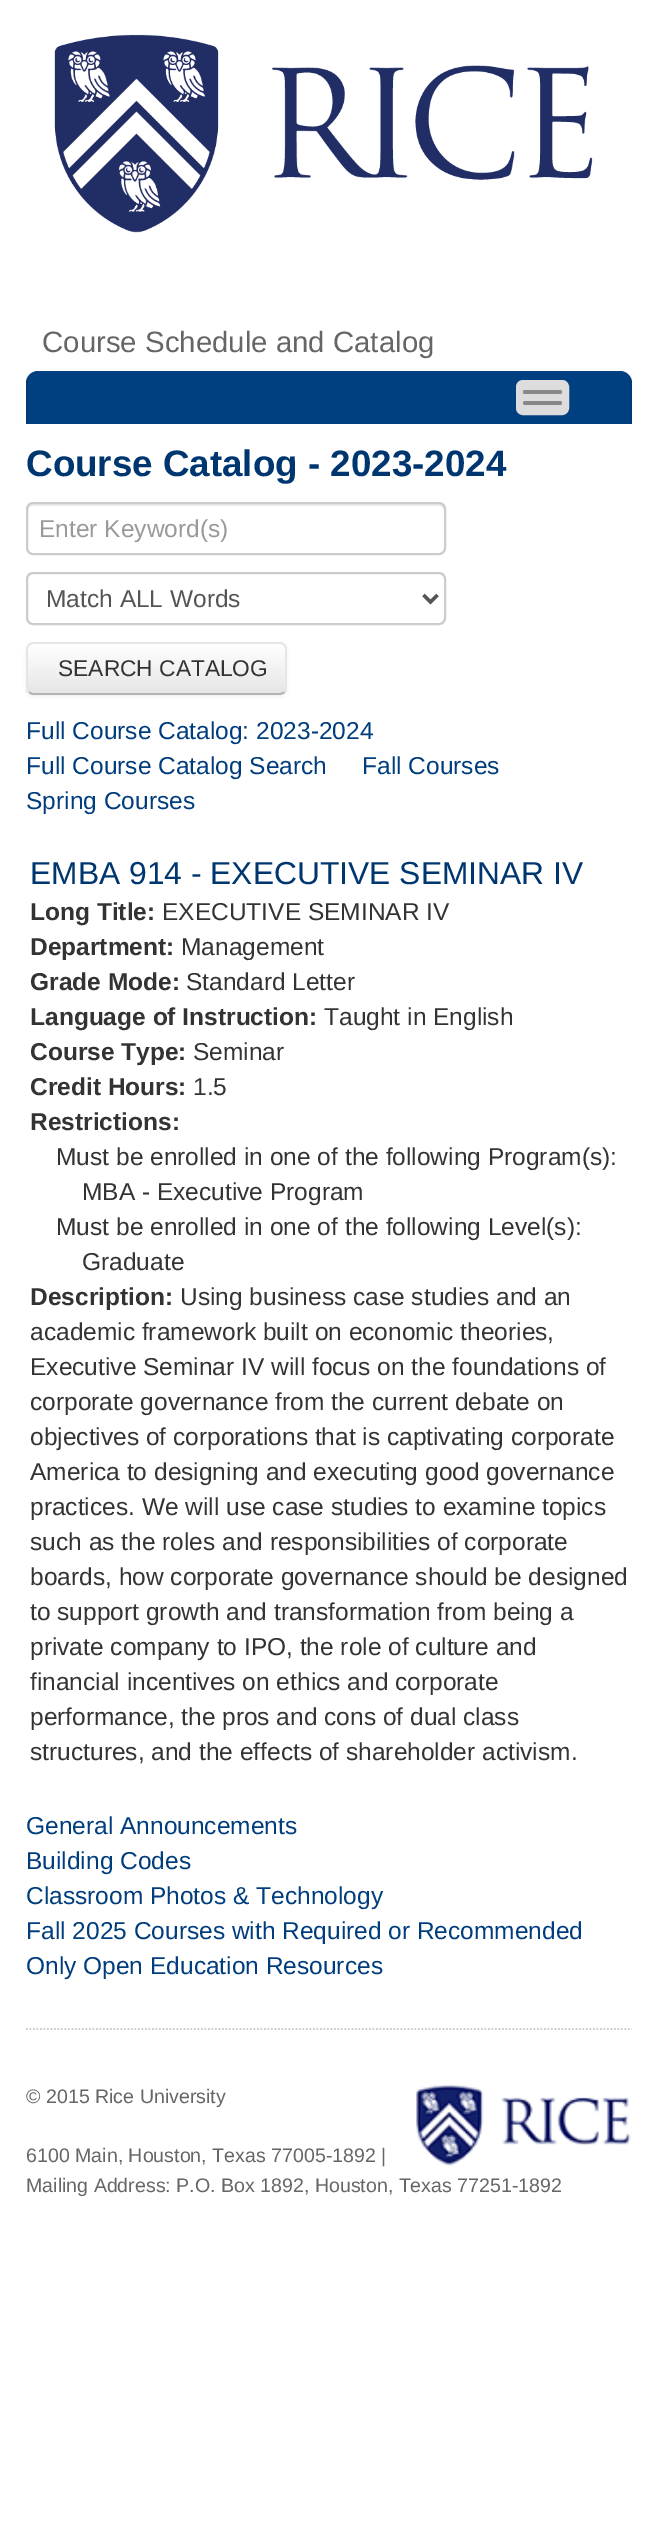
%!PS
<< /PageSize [657 2540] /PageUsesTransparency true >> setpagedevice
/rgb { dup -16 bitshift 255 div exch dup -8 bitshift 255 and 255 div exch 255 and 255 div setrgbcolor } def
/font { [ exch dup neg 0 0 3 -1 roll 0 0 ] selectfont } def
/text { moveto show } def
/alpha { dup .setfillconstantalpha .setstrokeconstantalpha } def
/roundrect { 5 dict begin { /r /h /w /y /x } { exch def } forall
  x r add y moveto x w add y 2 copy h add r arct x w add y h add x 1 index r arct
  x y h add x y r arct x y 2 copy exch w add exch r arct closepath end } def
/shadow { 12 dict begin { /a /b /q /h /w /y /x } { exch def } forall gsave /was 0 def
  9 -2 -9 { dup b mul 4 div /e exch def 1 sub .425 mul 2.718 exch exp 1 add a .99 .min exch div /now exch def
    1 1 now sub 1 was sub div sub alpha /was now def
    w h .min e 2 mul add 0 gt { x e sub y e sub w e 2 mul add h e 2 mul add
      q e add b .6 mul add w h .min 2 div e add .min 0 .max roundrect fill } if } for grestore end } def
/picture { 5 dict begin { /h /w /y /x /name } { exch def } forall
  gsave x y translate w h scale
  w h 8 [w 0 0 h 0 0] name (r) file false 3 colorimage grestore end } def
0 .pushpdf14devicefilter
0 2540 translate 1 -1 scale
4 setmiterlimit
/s1 { /LiberationSans-Regular 29.4 font 16#666666 rgb } def
/s2 { /LiberationSans-Bold 36.75 font 16#00366F rgb } def
/s3 { /LiberationSans-Regular 24.5 font 16#999999 rgb } def
/s4 { /LiberationSans-Regular 24.5 font 16#555555 rgb } def
/s5 { /LiberationSans-Regular 22.75 font 16#333333 rgb } def
/s6 { /LiberationSans-Regular 24.5 font 16#003D7D rgb } def
/s7 { /LiberationSans-Regular 31.8 font 16#00366F rgb } def
/s8 { /LiberationSans-Bold 24.5 font 16#333333 rgb } def
/s9 { /LiberationSans-Regular 24.5 font 16#333333 rgb } def
/s10 { /LiberationSans-Regular 19.6 font 16#666666 rgb } def
16#FFFFFF rgb
0 0 657 2540 rectfill
(pic1.raw) 54 34 539 199 picture
s1
(Course Schedule and Catalog) 42 352 text
16#004080 rgb
38 371 moveto 620 371 lineto 626.5 371 632 376.5 632 383 curveto 632 424 lineto 26 424 lineto 26 383 lineto 26 376.5 31.5 371 38 371 curveto closepath fill
0.1 alpha
16#000000 rgb
630 378 2 46 rectfill
26 378 2 46 rectfill
1 alpha
16#DDDDDD rgb
517 381 51 33 6 roundrect gsave fill grestore
2 setlinewidth
stroke
16#888888 rgb
523 390 39 4 2 roundrect fill
523 401 39 4 2 roundrect fill
s2
(Course Catalog - 2023-2024) 26 476 text
16#ECECEC rgb
33 506 moveto 439 506 lineto 442 506 444 508 444 511 curveto 444 551 lineto 445 550 445 549 445 548 curveto 445 509 lineto 445 506 443 504 440 504 curveto 33 504 lineto 30 504 28 506 28 509 curveto 28 511 lineto 28 508 30 506 33 506 curveto closepath fill
16#CCCCCC rgb
27 503 418 51 6 roundrect stroke
s3
(Enter Keyword\(s\)) 39 537 text
16#CCCCCC rgb
27 573 418 51 6 roundrect stroke
16#555555 rgb
3.5 setlinewidth
423.5 595 moveto 430.5 602 lineto 437.5 595 lineto stroke
(Match ALL Words) 46 607 text
16#000000 rgb
26 644 261 53 7 2 0.05 shadow
16#F5F5F5 rgb
26 642 261 53 7 roundrect fill
gsave
26 642 261 53 7 roundrect clip newpath
gsave 26 644 moveto 287 644 lineto 287 693 lineto 26 693 lineto closepath clip newpath
<< /ShadingType 2 /ColorSpace /DeviceRGB /Coords [157 644 157 693] /Extend [true true] /Function << /FunctionType 2 /Domain [0 1] /C0 [1 1 1] /C1 [0.902 0.902 0.902] /N 1 >> >> shfill grestore
grestore
16#B3B3B3 rgb
1.8 setlinewidth
284.5 692 moveto 283 693 281.5 694 280 694 curveto 33 694 lineto 31.5 694 30 693 29 692 curveto stroke
16#E6E6E6 rgb
29 692 moveto 28 691 27 689.5 27 688 curveto 27 649 lineto 27 647.5 28 646 29 645 curveto 30 644 31.5 643 33 643 curveto 280 643 lineto 281.5 643 283 644 284.5 645 curveto 285.5 646 286 647.5 286 649 curveto 286 688 lineto 286 689.5 285.5 691 284.5 692 curveto stroke
s5
(SEARCH CATALOG) 58 676 text
s6
(Full Course Catalog: 2023-2024) 26 739 text
(Full Course Catalog Search) 26 774 text
(Fall Courses) 362 774 text
(Spring Courses) 26 809 text
s7
(EMBA 914 - EXECUTIVE SEMINAR IV) 30 884 text
s8
(Long Title:) 30 920 text
s9
(EXECUTIVE SEMINAR IV) 162 920 text
s8
(Department:) 30 955 text
s9
(Management) 181 955 text
s8
(Grade Mode:) 30 990 text
s9
(Standard Letter) 186 990 text
s8
(Language of Instruction:) 30 1025 text
s9
(Taught in English) 324 1025 text
s8
(Course Type:) 30 1060 text
s9
(Seminar) 193 1060 text
s8
(Credit Hours:) 30 1095 text
s9
(1.5) 193 1095 text
s8
(Restrictions:) 30 1130 text
s9
(Must be enrolled in one of the following Program\(s\):) 56 1165 text
(MBA - Executive Program) 82 1200 text
(Must be enrolled in one of the following Level\(s\):) 56 1235 text
(Graduate) 82 1270 text
s8
(Description:) 30 1305 text
s9
(Using business case studies and an) 180 1305 text
(academic framework built on economic theories,) 30 1340 text
(Executive Seminar IV will focus on the foundations of) 30 1375 text
(corporate governance from the current debate on) 30 1410 text
(objectives of corporations that is captivating corporate) 30 1445 text
(America to designing and executing good governance) 30 1480 text
(practices. We will use case studies to examine topics) 30 1515 text
(such as the roles and responsibilities of corporate) 30 1550 text
(boards, how corporate governance should be designed) 30 1585 text
(to support growth and transformation from being a) 30 1620 text
(private company to IPO, the role of culture and) 30 1655 text
(financial incentives on ethics and corporate) 30 1690 text
(performance, the pros and cons of dual class) 30 1725 text
(structures, and the effects of shareholder activism.) 30 1760 text
s6
(General Announcements) 26 1834 text
(Building Codes) 26 1869 text
(Classroom Photos & Technology) 26 1904 text
(Fall 2025 Courses with Required or Recommended) 26 1939 text
(Only Open Education Resources) 26 1974 text
16#CCCCCC rgb
[1.75 1.75] 0 setdash
26 2029 moveto 632 2029 lineto stroke
s10
(© 2015 Rice University) 26 2103 text
(pic2.raw) 416 2084 215 82 picture
(6100 Main, Houston, Texas 77005-1892 |) 26 2162 text
(Mailing Address: P.O. Box 1892, Houston, Texas 77251-1892) 26 2192 text
.poppdf14devicefilter showpage
